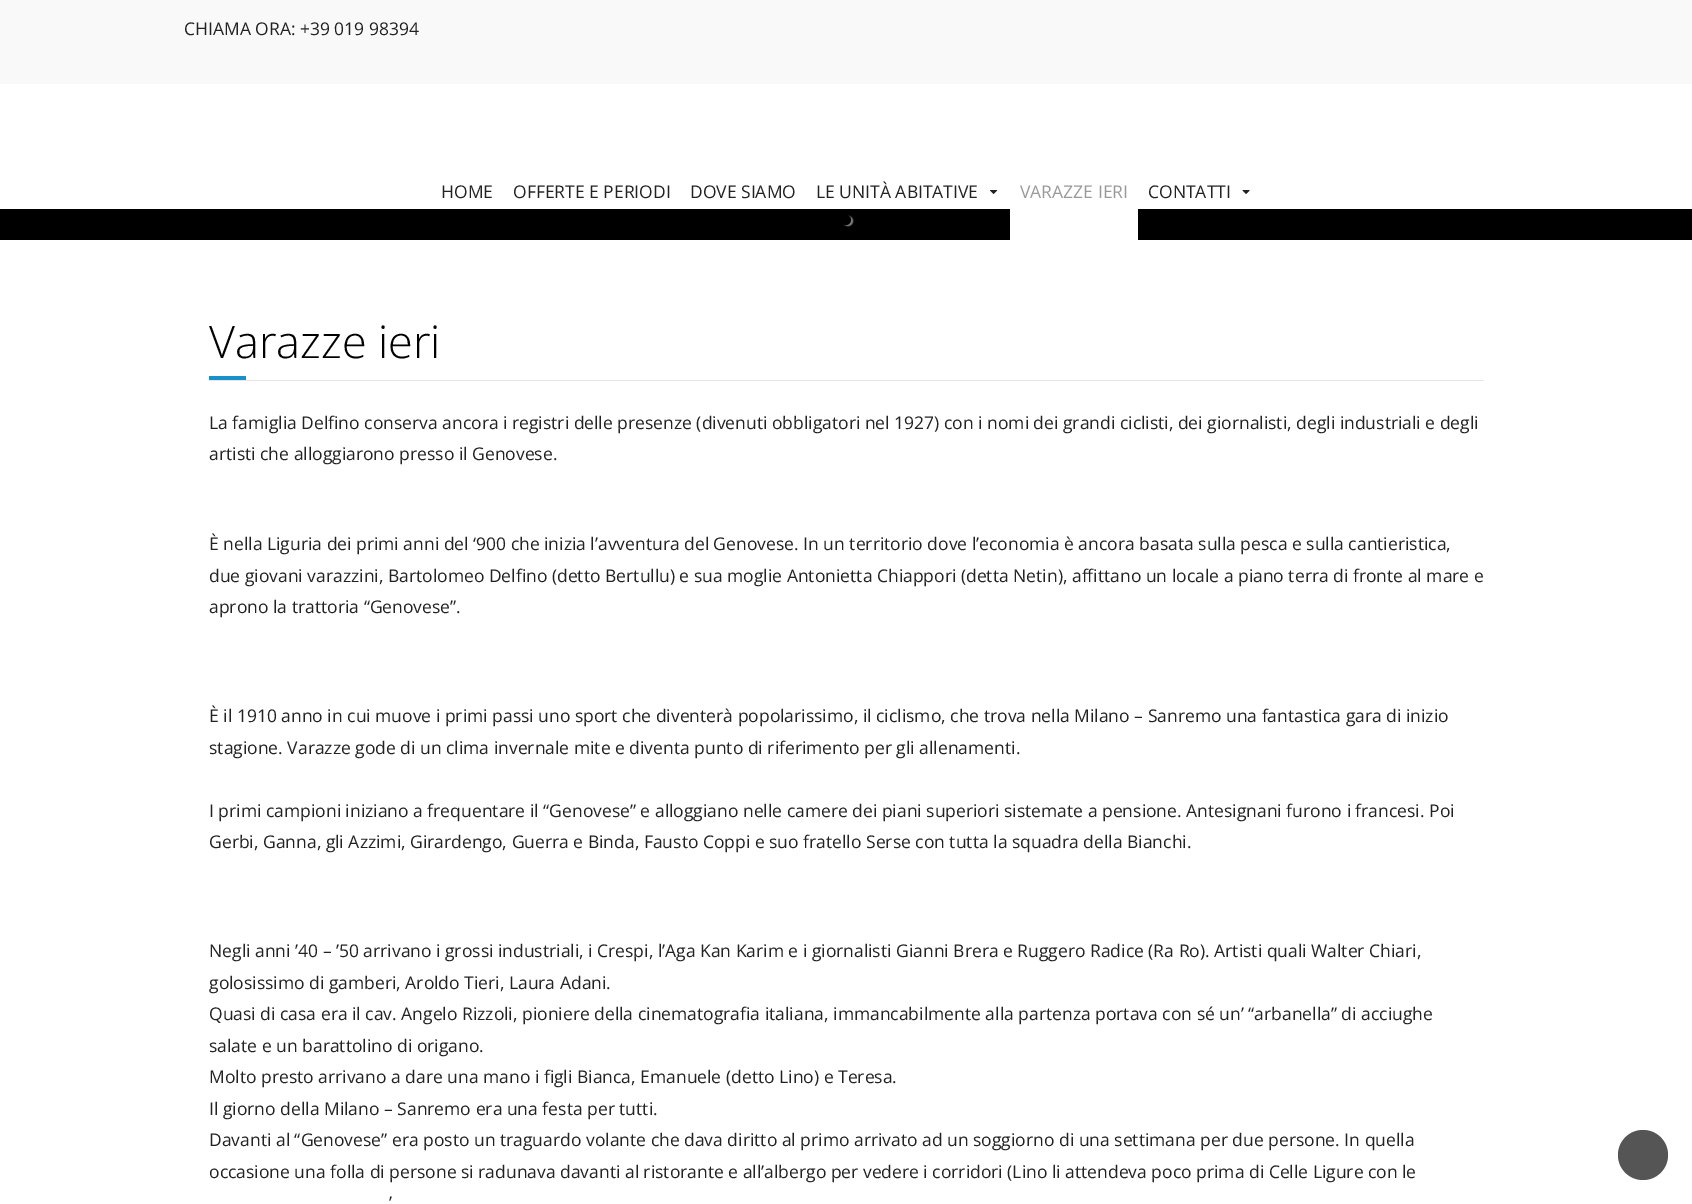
%!PS
<< /PageSize [1692 1204] /PageUsesTransparency true >> setpagedevice
/rgb { dup -16 bitshift 255 div exch dup -8 bitshift 255 and 255 div exch 255 and 255 div setrgbcolor } def
/font { [ exch dup neg 0 0 3 -1 roll 0 0 ] selectfont } def
/text { moveto show } def
/alpha { dup .setfillconstantalpha .setstrokeconstantalpha } def
/circle { newpath 0 360 arc closepath } def
/roundrect { 5 dict begin { /r /h /w /y /x } { exch def } forall
  x r add y moveto x w add y 2 copy h add r arct x w add y h add x 1 index r arct
  x y h add x y r arct x y 2 copy exch w add exch r arct closepath end } def
/shadow { 12 dict begin { /a /b /q /h /w /y /x } { exch def } forall gsave /was 0 def
  9 -2 -9 { dup b mul 4 div /e exch def 1 sub .425 mul 2.718 exch exp 1 add a .99 .min exch div /now exch def
    1 1 now sub 1 was sub div sub alpha /was now def
    w h .min e 2 mul add 0 gt { x e sub y e sub w e 2 mul add h e 2 mul add
      q e add b .6 mul add w h .min 2 div e add .min 0 .max roundrect fill } if } for grestore end } def
/picture { 5 dict begin { /h /w /y /x /name } { exch def } forall
  gsave x y translate w h scale
  w h 8 [w 0 0 h 0 0] name (r) file false 3 colorimage grestore end } def
0 .pushpdf14devicefilter
0 1204 translate 1 -1 scale
4 setmiterlimit
/s1 { /OpenSans-Regular 17.5 font 16#222222 rgb } def
/s2 { /OpenSans-Regular 17.5 font 16#999999 rgb } def
/s3 { /OpenSans-Light 45 font 16#000000 rgb } def
16#F9F9F9 rgb
0 0 1692 1204 rectfill
s1
(CHIAMA ORA: +39 019 98394) 184 35 text
16#FFFFFF rgb
0 84 1692 125 rectfill
s1
(HOME) 441 198 text
(OFFERTE E PERIODI) 513 198 text
(DOVE SIAMO) 690 198 text
(LE UNITÀ ABITATIVE) 816 198 text
(pic1.raw) 990 190 8 4 picture
16#000000 rgb
0 209 1692 31 rectfill
16#FFFFFF rgb
1010 209 128 31 rectfill
s2
(VARAZZE IERI) 1020 198 text
s1
(CONTATTI) 1148 198 text
(pic2.raw) 1242 190 8 4 picture
16#FFFFFF rgb
843 216 10 10 5 0.5 0.5 shadow
16#000000 rgb
846 220 5 circle fill
16#FFFFFF rgb
0 240 1692 964 rectfill
16#E6E6E6 rgb
209 380 1275 1 rectfill
s3
(Varazze ieri) 209 358 text
16#1891CA rgb
209 376 37 4 rectfill
s1
(La famiglia Delfino conserva ancora i registri delle presenze \(divenuti obbligatori nel 1927\) con i nomi dei grandi ciclisti, dei giornalisti, degli industriali e degli) 209 429 text
(artisti che alloggiarono presso il Genovese.) 209 460 text
(È nella Liguria dei primi anni del ‘900 che inizia l’avventura del Genovese. In un territorio dove l’economia è ancora basata sulla pesca e sulla cantieristica,) 209 550 text
(due giovani varazzini, Bartolomeo Delfino \(detto Bertullu\) e sua moglie Antonietta Chiappori \(detta Netin\), affittano un locale a piano terra di fronte al mare e) 209 582 text
(aprono la trattoria “Genovese”.) 209 613 text
(È il 1910 anno in cui muove i primi passi uno sport che diventerà popolarissimo, il ciclismo, che trova nella Milano – Sanremo una fantastica gara di inizio) 209 722 text
(stagione. Varazze gode di un clima invernale mite e diventa punto di riferimento per gli allenamenti.) 209 754 text
(I primi campioni iniziano a frequentare il “Genovese” e alloggiano nelle camere dei piani superiori sistemate a pensione. Antesignani furono i francesi. Poi) 209 817 text
(Gerbi, Ganna, gli Azzimi, Girardengo, Guerra e Binda, Fausto Coppi e suo fratello Serse con tutta la squadra della Bianchi.) 209 848 text
(Negli anni ’40 – ’50 arrivano i grossi industriali, i Crespi, l’Aga Kan Karim e i giornalisti Gianni Brera e Ruggero Radice \(Ra Ro\). Artisti quali Walter Chiari,) 209 957 text
(golosissimo di gamberi, Aroldo Tieri, Laura Adani.) 209 989 text
(Quasi di casa era il cav. Angelo Rizzoli, pioniere della cinematografia italiana, immancabilmente alla partenza portava con sé un’ “arbanella” di acciughe) 209 1020 text
(salate e un barattolino di origano.) 209 1052 text
(Molto presto arrivano a dare una mano i figli Bianca, Emanuele \(detto Lino\) e Teresa.) 209 1083 text
(Il giorno della Milano – Sanremo era una festa per tutti.) 209 1115 text
(Davanti al “Genovese” era posto un traguardo volante che dava diritto al primo arrivato ad un soggiorno di una settimana per due persone. In quella) 209 1146 text
(occasione una folla di persone si radunava davanti al ristorante e all’albergo per vedere i corridori \(Lino li attendeva poco prima di Celle Ligure con le) 209 1178 text
(’) 389 1209 text
16#555555 rgb
1643 1155 25 circle fill
.poppdf14devicefilter showpage
